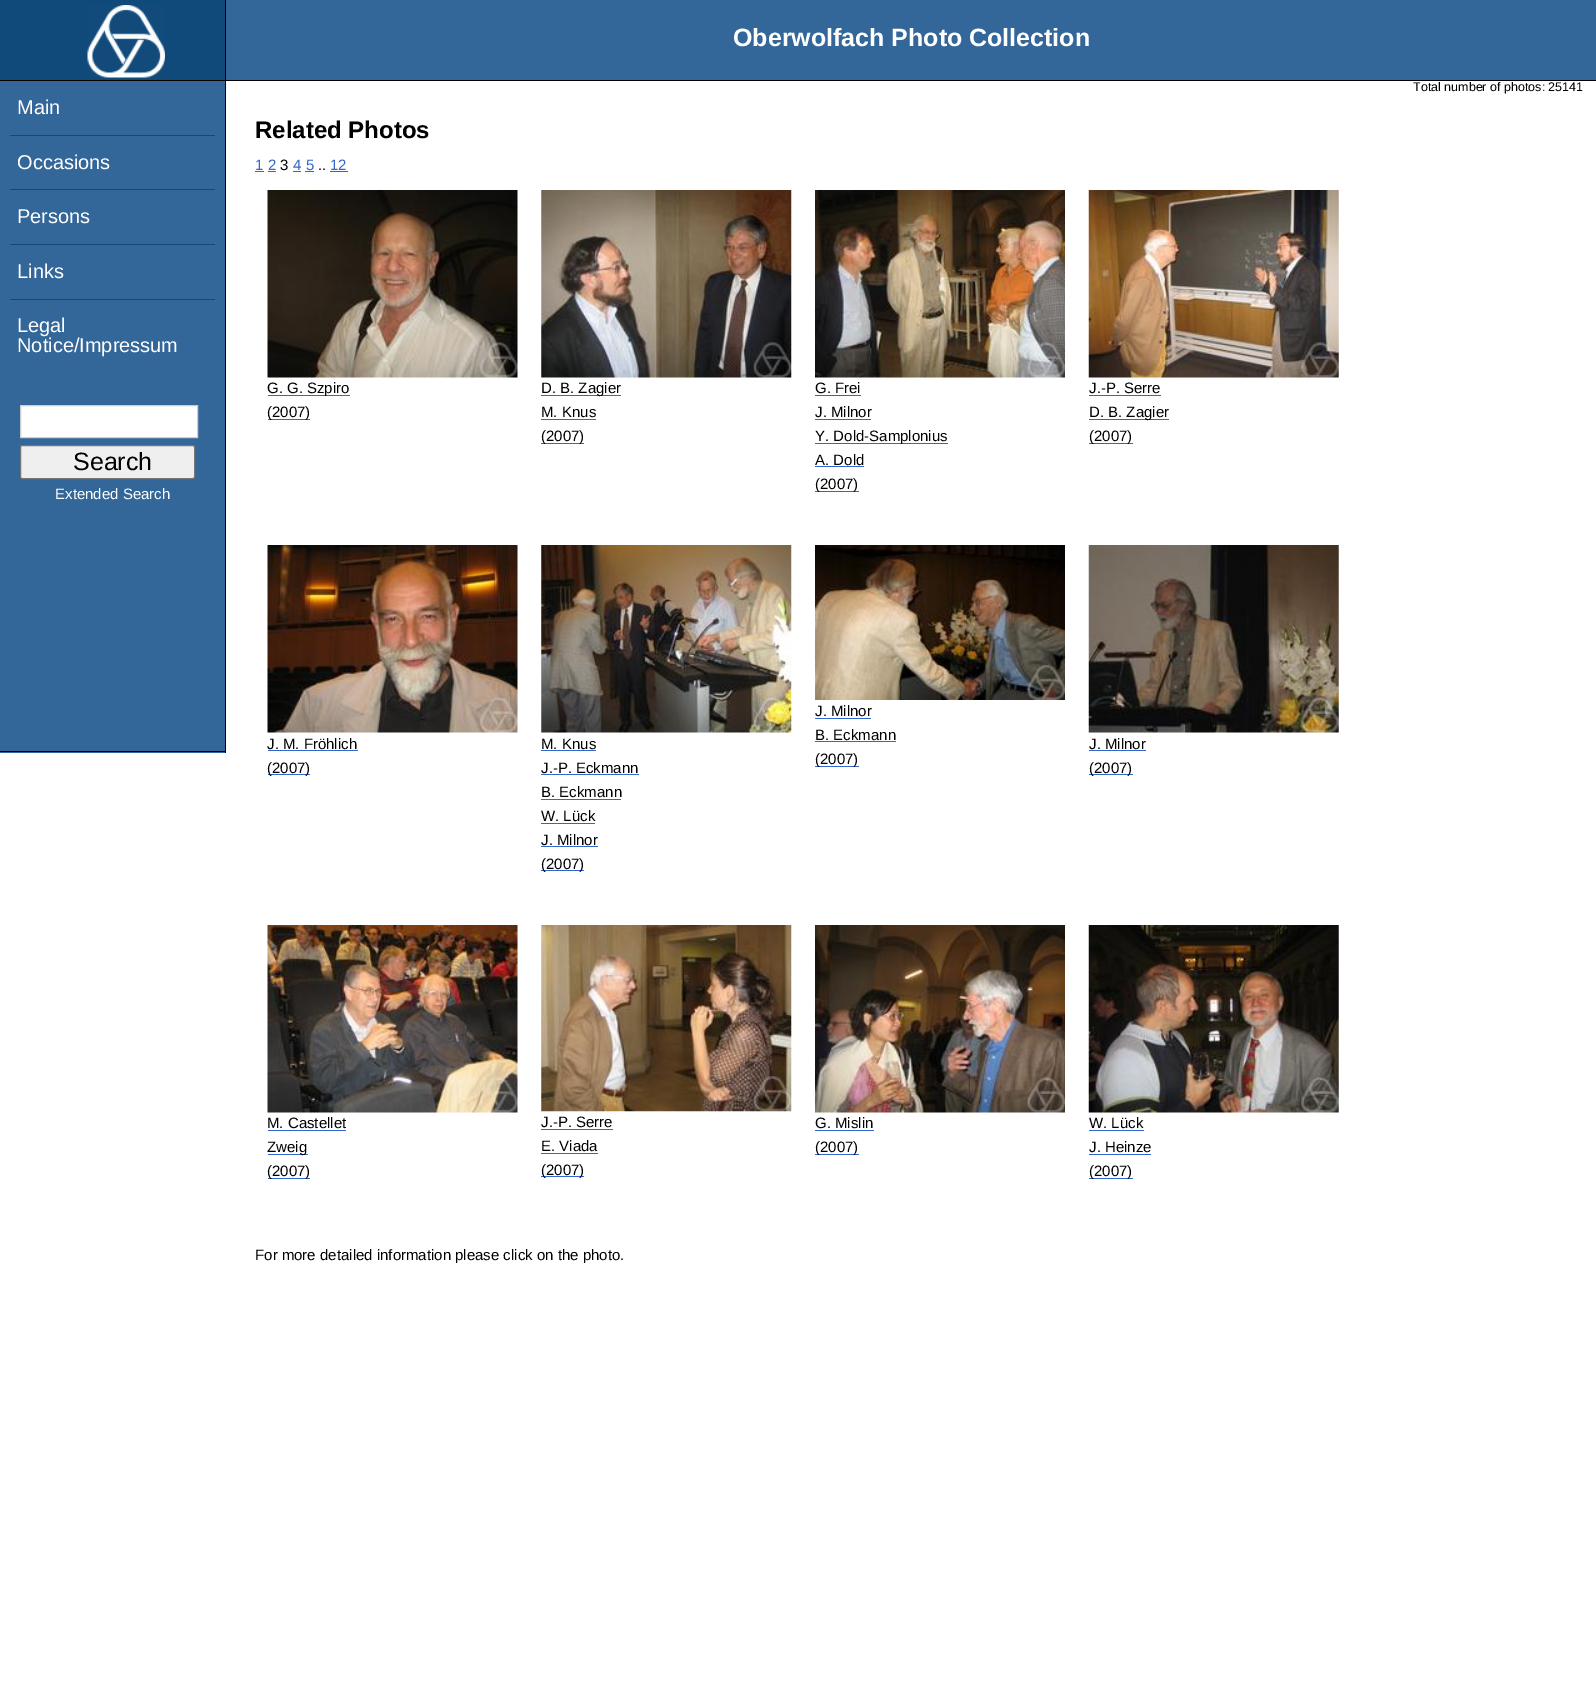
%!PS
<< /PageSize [1596 1700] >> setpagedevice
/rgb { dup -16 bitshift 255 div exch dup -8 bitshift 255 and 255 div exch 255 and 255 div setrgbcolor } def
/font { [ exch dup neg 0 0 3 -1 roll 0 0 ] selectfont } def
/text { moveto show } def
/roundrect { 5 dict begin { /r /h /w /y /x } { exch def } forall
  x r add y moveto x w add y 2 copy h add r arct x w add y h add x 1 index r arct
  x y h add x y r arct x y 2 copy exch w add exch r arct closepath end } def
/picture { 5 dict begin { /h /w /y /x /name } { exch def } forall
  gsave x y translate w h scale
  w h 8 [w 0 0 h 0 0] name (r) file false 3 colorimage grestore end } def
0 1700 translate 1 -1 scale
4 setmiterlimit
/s1 { /LiberationSans-Bold 25 font 16#FFFFFF rgb } def
/s2 { /LiberationSans-Regular 12.5 font 16#000000 rgb } def
/s3 { /LiberationSans-Regular 20 font 16#FFFFFF rgb } def
/s4 { /LiberationSans-Regular 25 font 16#000000 rgb } def
/s5 { /LiberationSans-Regular 15 font 16#FFFFFF rgb } def
/s6 { /LiberationSans-Bold 24 font 16#000000 rgb } def
/s7 { /LiberationSans-Regular 15 font 16#3366CC rgb } def
/s8 { /LiberationSans-Regular 15 font 16#000000 rgb } def
16#FFFFFF rgb
0 0 1596 1700 rectfill
16#336699 rgb
226 0 1370 80 rectfill
16#000000 rgb
0 80 1596 1 rectfill
16#104A7B rgb
0 0 225 80 rectfill
16#000000 rgb
225 0 1 80 rectfill
(pic1.raw) 87 5 78 73 picture
s1
(Oberwolfach Photo Collection) 733 46 text
s2
(Total number of photos: 25141) 1413 91 text
16#336699 rgb
0 81 225 672 rectfill
16#000000 rgb
225 81 1 672 rectfill
0 751 226 1 rectfill
s3
(Main) 17 114 text
16#104A7B rgb
10 135 205 1 rectfill
s3
(Occasions) 17 169 text
16#104A7B rgb
10 189 205 1 rectfill
s3
(Persons) 17 223 text
16#104A7B rgb
10 244 205 1 rectfill
s3
(Links) 17 278 text
16#104A7B rgb
10 299 205 1 rectfill
s3
(Legal) 17 332 text
(Notice/Impressum) 17 352 text
20.5 405.5 moveto 197.5 405.5 lineto 197.5 437.5 lineto 20.5 437.5 lineto closepath gsave fill grestore
16#CCCCCC rgb
stroke
16#EFEFEF rgb
20.5 445.5 174 33 2 roundrect gsave fill grestore
16#767676 rgb
stroke
s4
(Search) 73 470 text
s5
(Extended Search) 55 499 text
s6
(Related Photos) 255 138 text
s7
(1 2) 255 170 text
255 171 9 1 rectfill
s8
(3) 280 170 text
s7
(4 5) 293 170 text
293 171 8 1 rectfill
s8
(..) 318 170 text
s7
(12) 330 170 text
330 171 18 1 rectfill
268 171 8 1 rectfill
305 171 9 1 rectfill
(pic2.raw) 267 190 251 188 picture
268 395 82 1 rectfill
s8
(G. G. Szpiro) 267 393 text
16#3366CC rgb
268 419 42 1 rectfill
s8
(\(2007\)) 267 417 text
(pic3.raw) 541 190 251 188 picture
16#3366CC rgb
541 395 80 1 rectfill
s8
(D. B. Zagier) 541 393 text
(M. Knus) 541 417 text
16#3366CC rgb
541 419 55 1 rectfill
541 443 43 1 rectfill
s8
(\(2007\)) 541 441 text
(pic4.raw) 815 190 250 188 picture
(G. Frei) 815 393 text
16#3366CC rgb
815 395 46 1 rectfill
s8
(J. Milnor) 815 417 text
16#3366CC rgb
815 419 56 1 rectfill
815 443 133 1 rectfill
s8
(Y. Dold-Samplonius) 815 441 text
(A. Dold) 815 465 text
16#3366CC rgb
815 466 49 1 rectfill
815 491 44 1 rectfill
s8
(\(2007\)) 815 489 text
(pic5.raw) 1088 190 251 188 picture
(J.-P. Serre) 1089 393 text
16#3366CC rgb
1089 395 72 1 rectfill
1089 419 80 1 rectfill
s8
(D. B. Zagier) 1089 417 text
16#3366CC rgb
1089 443 44 1 rectfill
s8
(\(2007\)) 1089 441 text
(pic6.raw) 267 545 251 188 picture
(J. M. Fröhlich) 267 749 text
16#3366CC rgb
268 750 90 1 rectfill
268 774 42 1 rectfill
s8
(\(2007\)) 267 773 text
(pic7.raw) 541 545 251 188 picture
(M. Knus) 541 749 text
16#3366CC rgb
541 750 55 1 rectfill
s8
(J.-P. Eckmann) 541 773 text
16#3366CC rgb
541 774 98 1 rectfill
s8
(B. Eckmann) 541 797 text
16#3366CC rgb
541 799 80 1 rectfill
s8
(W. Lück) 541 821 text
16#3366CC rgb
541 823 54 1 rectfill
s8
(J. Milnor) 541 845 text
16#3366CC rgb
541 846 57 1 rectfill
541 870 43 1 rectfill
s8
(\(2007\)) 541 869 text
(pic8.raw) 815 545 250 155 picture
(J. Milnor) 815 716 text
16#3366CC rgb
815 718 56 1 rectfill
s8
(B. Eckmann) 815 740 text
16#3366CC rgb
815 741 81 1 rectfill
815 766 44 1 rectfill
s8
(\(2007\)) 815 764 text
(pic9.raw) 1088 545 251 188 picture
(J. Milnor) 1089 749 text
16#3366CC rgb
1089 750 57 1 rectfill
1089 774 44 1 rectfill
s8
(\(2007\)) 1089 773 text
(pic10.raw) 267 925 251 188 picture
(M. Castellet) 267 1128 text
16#3366CC rgb
268 1130 78 1 rectfill
268 1154 40 1 rectfill
s8
(Zweig) 267 1152 text
16#3366CC rgb
268 1178 42 1 rectfill
s8
(\(2007\)) 267 1176 text
(pic11.raw) 541 925 251 187 picture
(J.-P. Serre) 541 1127 text
16#3366CC rgb
541 1129 72 1 rectfill
s8
(E. Viada) 541 1151 text
16#3366CC rgb
541 1153 57 1 rectfill
541 1176 43 1 rectfill
s8
(\(2007\)) 541 1175 text
(pic12.raw) 815 925 250 188 picture
(G. Mislin) 815 1128 text
16#3366CC rgb
815 1130 59 1 rectfill
815 1154 44 1 rectfill
s8
(\(2007\)) 815 1152 text
(pic13.raw) 1088 925 251 188 picture
(W. Lück) 1089 1128 text
16#3366CC rgb
1089 1130 55 1 rectfill
s8
(J. Heinze) 1089 1152 text
16#3366CC rgb
1089 1154 62 1 rectfill
1089 1178 44 1 rectfill
s8
(\(2007\)) 1089 1176 text
(For more detailed information please click on the photo.) 255 1260 text
showpage
